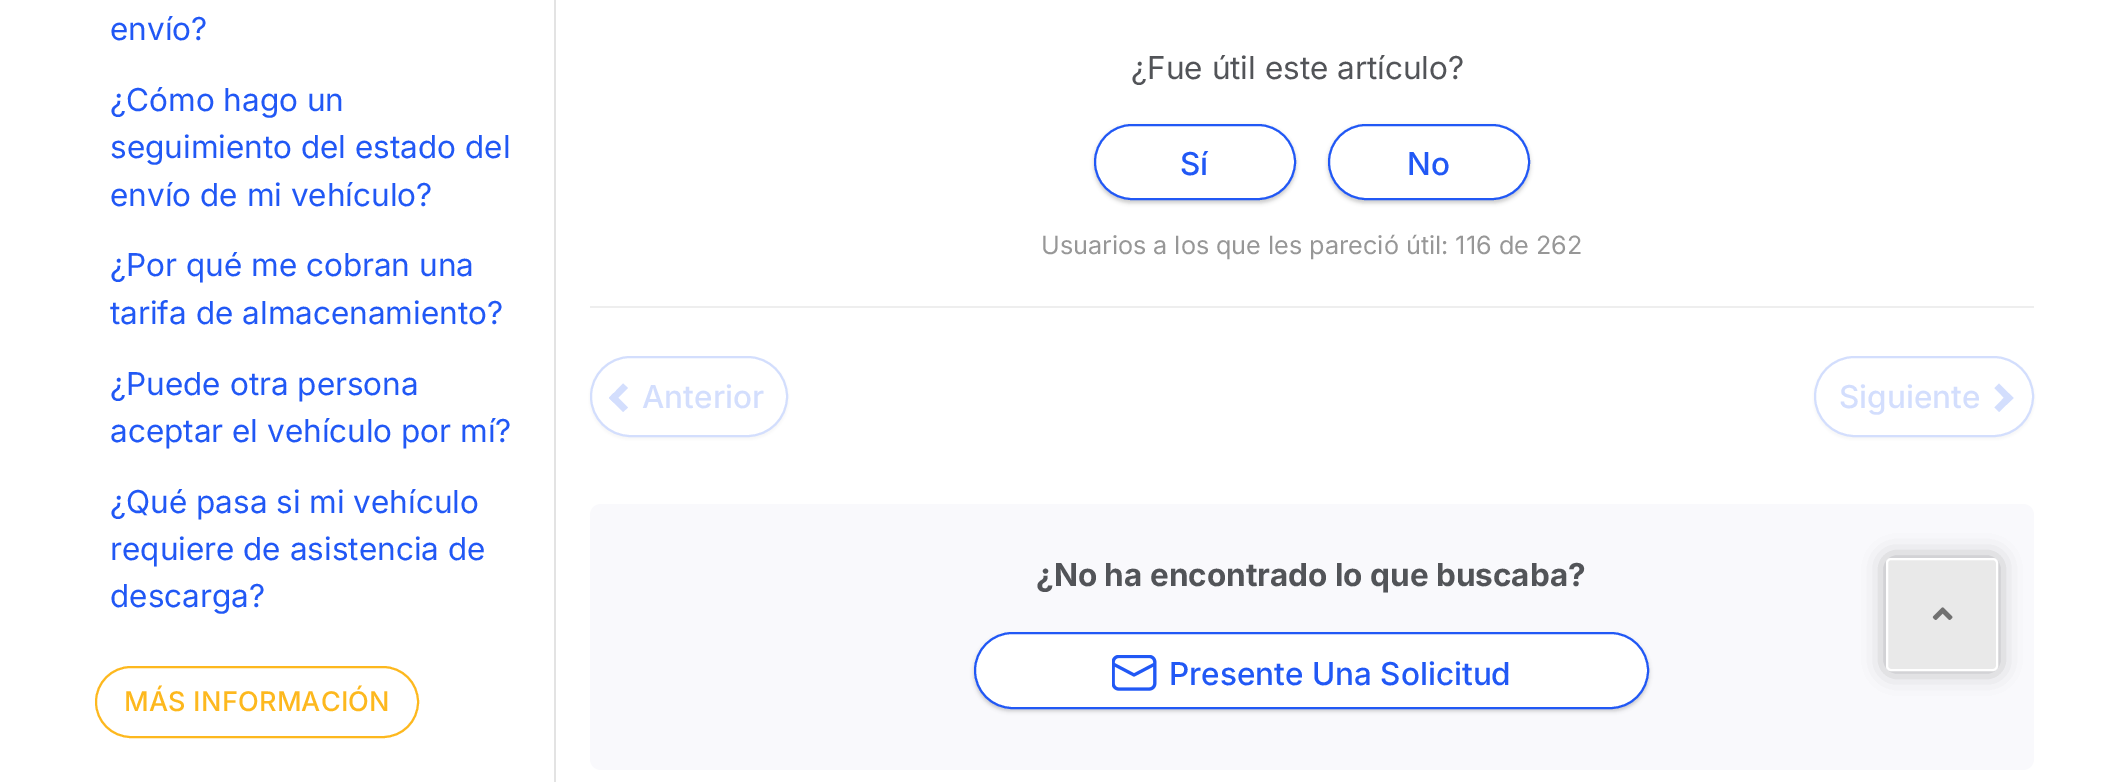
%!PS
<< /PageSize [2109 782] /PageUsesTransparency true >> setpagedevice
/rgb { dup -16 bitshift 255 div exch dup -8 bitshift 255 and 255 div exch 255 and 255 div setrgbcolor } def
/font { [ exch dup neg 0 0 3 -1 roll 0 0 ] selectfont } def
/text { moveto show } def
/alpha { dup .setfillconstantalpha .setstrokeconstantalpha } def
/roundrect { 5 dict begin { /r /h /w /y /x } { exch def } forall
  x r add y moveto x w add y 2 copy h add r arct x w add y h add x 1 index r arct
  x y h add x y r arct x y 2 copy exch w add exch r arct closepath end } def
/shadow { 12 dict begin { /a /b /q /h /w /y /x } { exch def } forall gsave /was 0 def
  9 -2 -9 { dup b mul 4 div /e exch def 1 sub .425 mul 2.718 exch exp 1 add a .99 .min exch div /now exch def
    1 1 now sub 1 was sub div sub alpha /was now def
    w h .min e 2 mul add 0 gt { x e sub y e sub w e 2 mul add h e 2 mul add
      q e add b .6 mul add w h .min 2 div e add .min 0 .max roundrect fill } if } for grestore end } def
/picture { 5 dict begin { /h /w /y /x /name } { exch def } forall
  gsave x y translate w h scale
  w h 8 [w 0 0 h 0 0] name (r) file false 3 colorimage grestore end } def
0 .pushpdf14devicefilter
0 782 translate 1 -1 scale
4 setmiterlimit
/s1 { /Inter-Regular 31.5 font 16#2158F5 rgb } def
/s2 { /Inter-Regular 31.5 font 16#525458 rgb } def
/s3 { /Inter-Medium 31.5 font 16#2158F5 rgb } def
/s4 { /Inter-Regular 25.2 font 16#979797 rgb } def
/s5 { /Inter-Medium 31.5 font 16#D3DEFD rgb } def
/s6 { /Inter-Bold 31.5 font 16#525458 rgb } def
16#FFFFFF rgb
0 0 2109 782 rectfill
s1
(envío?) 110 40 text
(¿Cómo hago un) 110 111 text
(seguimiento del estado del) 110 158 text
(envío de mi vehículo?) 110 206 text
(¿Por qué me cobran una) 110 276 text
(tarifa de almacenamiento?) 110 324 text
(¿Puede otra persona) 110 395 text
(aceptar el vehículo por mí?) 110 442 text
(¿Qué pasa si mi vehículo) 110 513 text
(requiere de asistencia de) 110 560 text
(descarga?) 110 607 text
16#FDB81E rgb
2 setlinewidth
96 667 322 70 35 roundrect stroke
/Inter-Medium 27 font
124 711 moveto 0.25 0 (MÁS INFORMACIÓN) ashow
16#E3E3E3 rgb
554 0 2 782 rectfill
16#EEEEEE rgb
590 306 1444 2 rectfill
s2
(¿Fue útil este artículo?) 1131 79 text
16#000000 rgb
1094 126 202 77 38.5 2 0.2 shadow
16#FFFFFF rgb
1095 125 200 74 37 roundrect gsave fill grestore
16#2158F5 rgb
stroke
s3
(Sí) 1180 175 text
16#000000 rgb
1328 126 202 77 38.5 2 0.2 shadow
16#FFFFFF rgb
1329 125 200 74 37 roundrect gsave fill grestore
16#2158F5 rgb
stroke
(No) 1407 175 text
s4
(Usuarios a los que les pareció útil: 116 de 262) 1041 254 text
16#CCCCCC rgb
590 358 198 81 40.5 2 0.2 shadow
16#FFFFFF rgb
591 357 196 79 39.5 roundrect gsave fill grestore
16#D3DEFD rgb
stroke
628 407.5 moveto 623 412 lineto 609 398 lineto 613.5 393 lineto closepath fill
628 388 moveto 613.5 402.5 lineto 609 398 lineto 623 383.5 lineto closepath fill
s5
(Anterior) 642 408 text
16#CCCCCC rgb
1814 358 220 81 40.5 2 0.2 shadow
16#FFFFFF rgb
1815 357 218 79 39.5 roundrect gsave fill grestore
16#D3DEFD rgb
stroke
(Siguiente) 1839 408 text
1994.5 388 moveto 1999 383.5 lineto 2013.5 398 lineto 2008.5 402.5 lineto closepath fill
1994.5 407.5 moveto 2008.5 393 lineto 2013.5 398 lineto 1999 412 lineto closepath fill
16#F9F9FC rgb
590 504 1444 266 11 roundrect fill
s6
(¿No ha encontrado lo que buscaba?) 1036 586 text
16#000000 rgb
974 635 675 76 38 2 0.2 shadow
16#FFFFFF rgb
975 633 673 75 37.5 roundrect gsave fill grestore
16#2158F5 rgb
stroke
(pic1.raw) 1112 655 45 36 picture
s3
(Presente Una Solicitud) 1169 685 text
16#000000 rgb
1886 558 112 113 5 11 0.16 shadow
1886 558 112 113 5 11 0.16 shadow
16#E9E9E9 rgb
1887 559 110 111 4 roundrect gsave fill grestore
16#FFFFFF rgb
stroke
(pic2.raw) 1932 607 21 13 picture
.poppdf14devicefilter showpage
